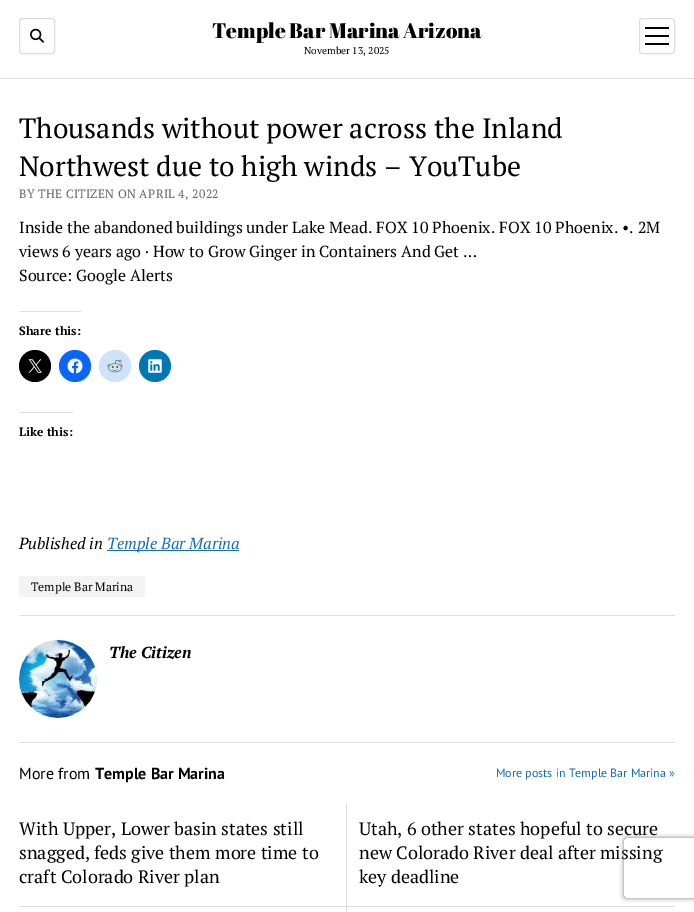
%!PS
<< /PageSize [694 912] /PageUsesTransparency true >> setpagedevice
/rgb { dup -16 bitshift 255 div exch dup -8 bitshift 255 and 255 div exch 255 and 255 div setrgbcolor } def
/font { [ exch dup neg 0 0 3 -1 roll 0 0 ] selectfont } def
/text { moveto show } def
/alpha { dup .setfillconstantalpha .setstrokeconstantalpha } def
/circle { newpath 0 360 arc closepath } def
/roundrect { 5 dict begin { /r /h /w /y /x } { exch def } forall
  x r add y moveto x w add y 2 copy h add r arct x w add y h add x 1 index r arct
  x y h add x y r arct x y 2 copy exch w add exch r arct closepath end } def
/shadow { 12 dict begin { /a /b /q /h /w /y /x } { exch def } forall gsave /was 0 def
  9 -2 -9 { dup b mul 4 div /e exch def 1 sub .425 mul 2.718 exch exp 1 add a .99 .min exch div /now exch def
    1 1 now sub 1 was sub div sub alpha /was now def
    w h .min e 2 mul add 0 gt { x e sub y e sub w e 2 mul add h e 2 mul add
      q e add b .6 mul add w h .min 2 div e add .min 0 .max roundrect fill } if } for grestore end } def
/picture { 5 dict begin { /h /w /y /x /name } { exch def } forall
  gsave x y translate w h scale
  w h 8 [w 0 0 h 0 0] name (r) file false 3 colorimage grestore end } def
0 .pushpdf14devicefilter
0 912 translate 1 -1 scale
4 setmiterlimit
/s1 { /AbrilFatface-Regular 21 font 16#000000 rgb } def
/s2 { /PTSerif-Regular 10 font 16#000000 rgb } def
/s3 { /PTSerif-Regular 28 font 16#000000 rgb } def
/s4 { /PTSerif-Regular 16 font 16#000000 rgb } def
/s5 { /PTSerif-Bold 12 font 16#000000 rgb } def
/s6 { /PTSerif-Italic 16 font 16#000000 rgb } def
/s7 { /PTSerif-Italic 16 font 16#176DB3 rgb } def
/s8 { /PTSerif-Regular 12 font 16#000000 rgb } def
/s9 { /PTSerif-BoldItalic 16 font 16#000000 rgb } def
/s10 { /PTSans-Regular 16 font 16#000000 rgb } def
/s11 { /PTSans-Bold 16 font 16#000000 rgb } def
/s12 { /PTSans-Regular 12 font 16#176DB3 rgb } def
/s13 { /PTSerif-Regular 18 font 16#000000 rgb } def
16#FFFFFF rgb
0 0 694 912 rectfill
16#DCDCDC rgb
0 78 694 1 rectfill
19.5 18.5 35 35 2.5 roundrect stroke
(pic1.raw) 30 28 14 15 picture
s1
(Temple Bar Marina Arizona) 212 38 text
s2
(November 13, 2025) 304 54 text
16#DCDCDC rgb
639.5 18.5 35 35 2.5 roundrect stroke
16#000000 rgb
645 27 24 2 rectfill
645 35 24 2 rectfill
645 43 24 2 rectfill
s3
(Thousands without power across the Inland) 19 138 text
(Northwest due to high winds – YouTube) 19 176 text
/PTSerif-Regular 12 font
16#666666 rgb
19 198 moveto 0.35 0 (BY THE CITIZEN ON APRIL 4, 2022) ashow
s4
(Inside the abandoned buildings under Lake Mead. FOX 10 Phoenix. FOX 10 Phoenix. •. 2M) 19 233 text
(views 6 years ago · How to Grow Ginger in Containers And Get …) 19 257 text
(Source: Google Alerts) 19 281 text
16#DCDCDE rgb
19 311 62 1 rectfill
s5
(Share this:) 19 335 text
35 366 16 circle fill
(pic2.raw) 28 359 14 14 picture
16#0866FF rgb
75 366 16 circle fill
(pic3.raw) 67 358 16 16 picture
16#CEE3F8 rgb
115 366 16 circle fill
(pic4.raw) 107 359 16 14 picture
16#0077B5 rgb
155 366 16 circle fill
(pic5.raw) 148 359 14 14 picture
16#DCDCDE rgb
19 412 54 1 rectfill
s5
(Like this:) 19 436 text
16#DCDCDC rgb
19 742 656 1 rectfill
s6
(Published in) 19 549 text
16#176DB3 rgb
107 550 132 1 rectfill
(Temple Bar Marina) 107 549 text
16#F3F3F3 rgb
19 576 126 21 rectfill
s8
(Temple Bar Marina) 31 591 text
16#DCDCDC rgb
19 615 656 1 rectfill
(pic6.raw) 19 640 78 78 picture
s9
(The Citizen) 109 658 text
s10
(More from) 19 779 text
s11
(Temple Bar Marina) 95 779 text
s12
(More posts in Temple Bar Marina ») 496 777 text
16#DCDCDC rgb
346 803 1 103 rectfill
s13
(With Upper, Lower basin states still) 19 835 text
(snagged, feds give them more time to) 19 859 text
(craft Colorado River plan) 19 883 text
(Utah, 6 other states hopeful to secure) 359 835 text
(new Colorado River deal after missing) 359 859 text
(key deadline) 359 883 text
16#DCDCDC rgb
19 906 328 1 rectfill
346 906 1 6 rectfill
346 906 328 1 rectfill
gsave
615 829 moveto 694 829 lineto 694 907 lineto 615 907 lineto closepath 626 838 moveto 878 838 lineto 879 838 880 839 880 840 curveto 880 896 lineto 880 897 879 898 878 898 curveto 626 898 lineto 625 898 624 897 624 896 curveto 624 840 lineto 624 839 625 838 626 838 curveto closepath eoclip newpath
16#808080 rgb
624 838 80 60 2 2.5 1 shadow
grestore
.poppdf14devicefilter showpage
